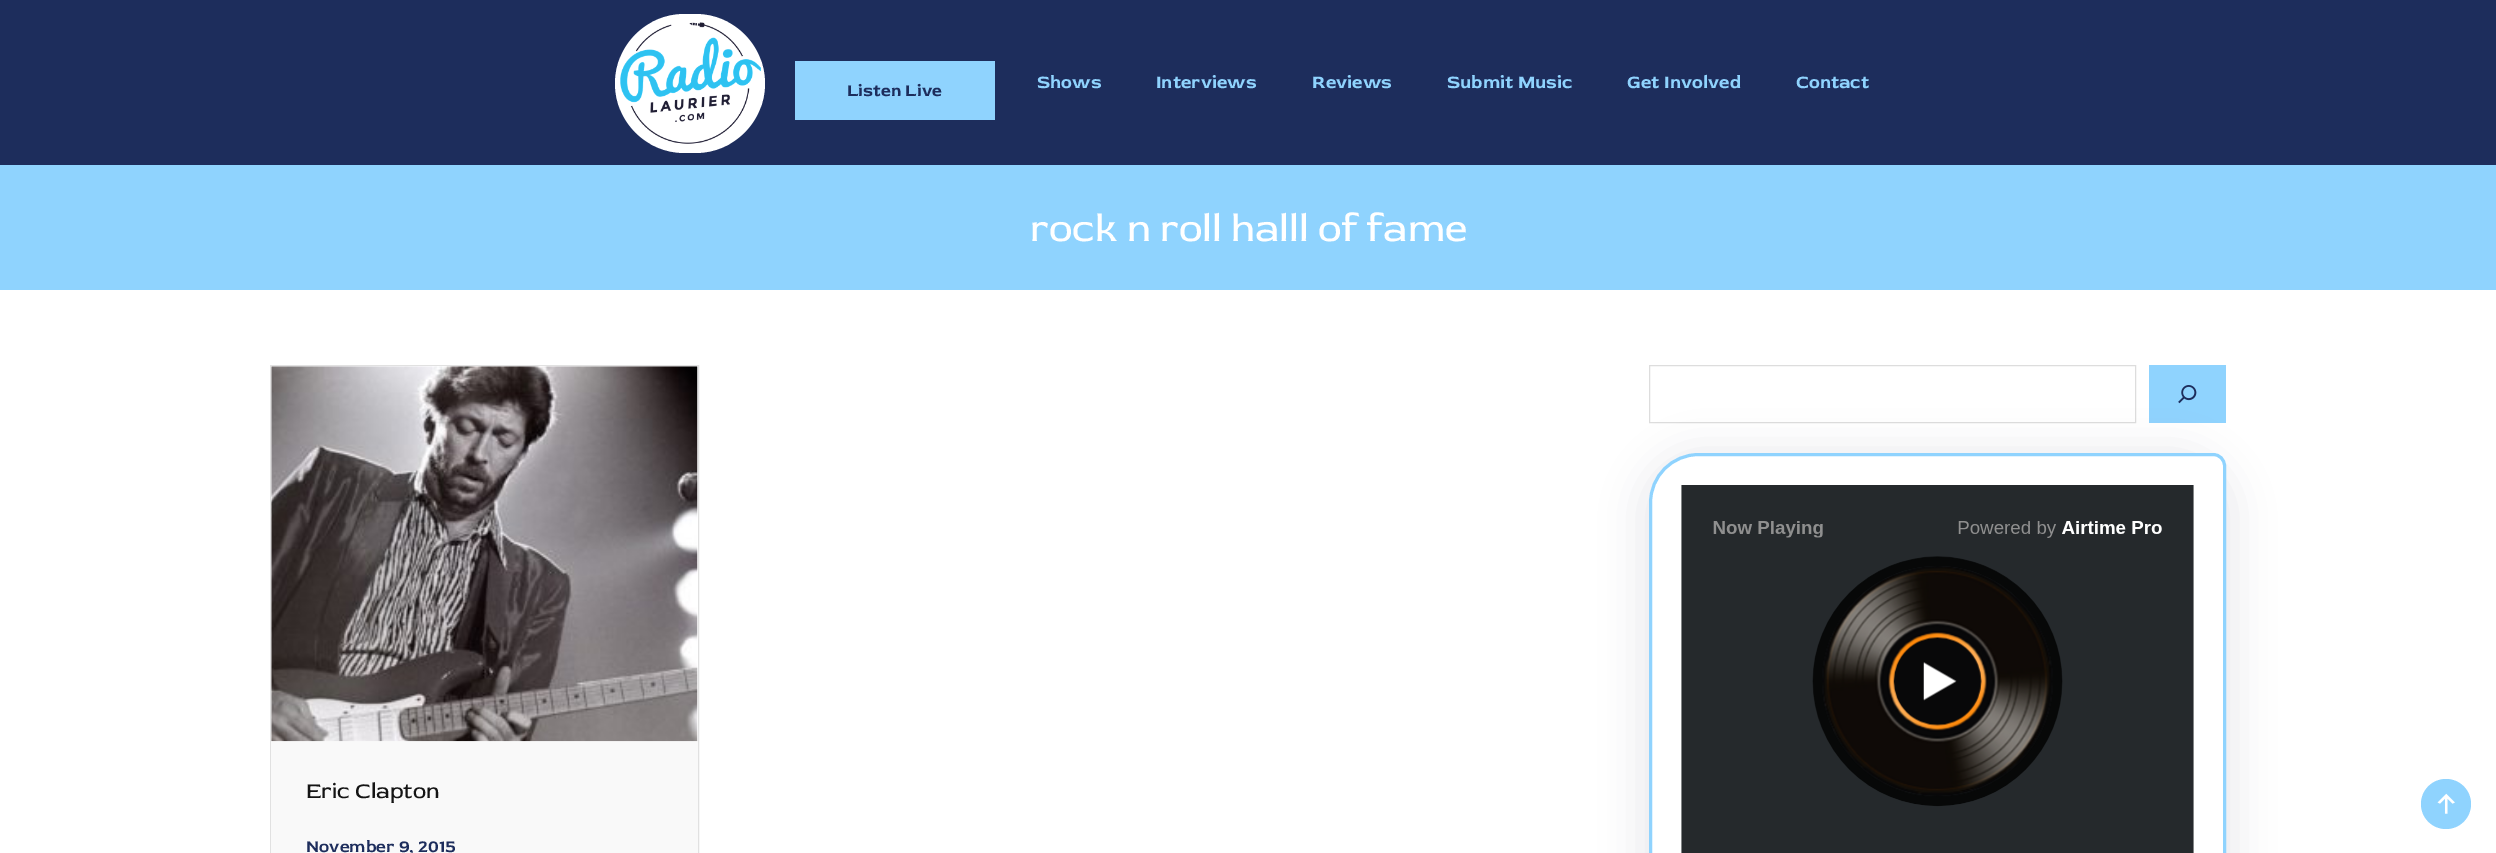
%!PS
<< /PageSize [2496 853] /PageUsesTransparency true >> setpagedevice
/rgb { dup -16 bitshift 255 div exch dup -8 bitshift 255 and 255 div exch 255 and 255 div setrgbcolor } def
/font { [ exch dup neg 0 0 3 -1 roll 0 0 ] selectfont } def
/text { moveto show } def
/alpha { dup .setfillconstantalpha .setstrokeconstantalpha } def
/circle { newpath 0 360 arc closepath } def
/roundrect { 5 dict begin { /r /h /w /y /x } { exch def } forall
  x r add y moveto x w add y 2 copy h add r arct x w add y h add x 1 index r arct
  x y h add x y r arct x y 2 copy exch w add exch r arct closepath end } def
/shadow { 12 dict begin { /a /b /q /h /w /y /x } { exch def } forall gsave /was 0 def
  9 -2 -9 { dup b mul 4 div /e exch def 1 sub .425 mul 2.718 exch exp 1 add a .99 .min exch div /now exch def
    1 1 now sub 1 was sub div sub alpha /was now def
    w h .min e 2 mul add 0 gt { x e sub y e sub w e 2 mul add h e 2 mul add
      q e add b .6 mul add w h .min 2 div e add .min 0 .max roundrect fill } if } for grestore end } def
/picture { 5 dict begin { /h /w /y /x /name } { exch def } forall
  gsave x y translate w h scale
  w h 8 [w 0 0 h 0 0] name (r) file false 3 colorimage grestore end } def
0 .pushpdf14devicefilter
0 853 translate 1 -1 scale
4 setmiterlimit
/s1 { /RedRose-Bold 17.5 font 16#1D2D5C rgb } def
/s2 { /RedRose-Bold 18.75 font 16#8FD3FE rgb } def
/s3 { /RedRose-Regular 40 font 16#FFFFFF rgb } def
/s4 { /RedRose-Regular 22.5 font 16#141414 rgb } def
/s5 { /RedRose-SemiBold 17.5 font 16#1D2D5C rgb } def
16#FFFFFF rgb
0 0 2496 853 rectfill
16#1D2D5C rgb
0 0 2496 165 rectfill
16#FFFFFF rgb
615 14 150 139 69.5 roundrect fill
(pic1.raw) 620 22 141 122 picture
16#8FD3FE rgb
795 61 200 59 rectfill
s1
(Listen Live) 847 96 text
s2
(Shows) 1037 88 text
(Interviews) 1156 88 text
(Reviews) 1312 88 text
(Submit Music) 1447 88 text
(Get Involved) 1627 88 text
(Contact) 1796 88 text
0 165 2496 125 rectfill
s3
(rock n roll halll of fame) 1030 241 text
16#E1E1E1 rgb
270.5 365.5 428 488 rectstroke
16#F9F9F9 rgb
271 741 427 112 rectfill
(pic2.raw) 271 366 427 376 picture
s4
(Eric Clapton) 306 798 text
s5
(November 9, 2015) 306 852 text
16#DDDDDD rgb
1649.5 365.5 486 57 rectstroke
16#8FD3FE rgb
2149 365 77 58 rectfill
(pic3.raw) 2178 385 19 19 picture
16#212547 rgb
1640 451 595 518 59 19 0.1 shadow
16#FFFFFF rgb
1699 454.5 moveto 2213 454.5 lineto 2219.5 454.5 2224.5 459.5 2224.5 466 curveto 2224.5 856 lineto 2224.5 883 2203 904.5 2176 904.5 curveto 1662 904.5 lineto 1655.5 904.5 1650.5 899.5 1650.5 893 curveto 1650.5 503 lineto 1650.5 476 1672 454.5 1699 454.5 curveto closepath gsave fill grestore
16#8FD3FE rgb
3 setlinewidth
stroke
(pic4.raw) 1681 485 513 368 picture
2446 804 25 circle fill
(pic5.raw) 2437 793 18 21 picture
.poppdf14devicefilter showpage
